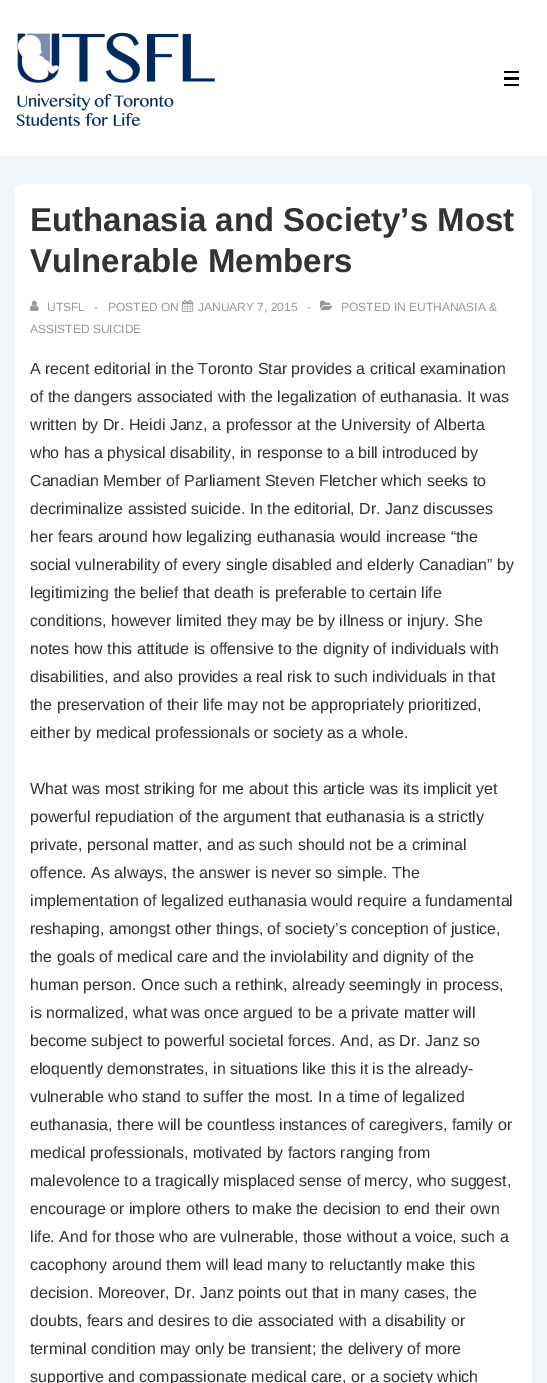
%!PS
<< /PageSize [547 1383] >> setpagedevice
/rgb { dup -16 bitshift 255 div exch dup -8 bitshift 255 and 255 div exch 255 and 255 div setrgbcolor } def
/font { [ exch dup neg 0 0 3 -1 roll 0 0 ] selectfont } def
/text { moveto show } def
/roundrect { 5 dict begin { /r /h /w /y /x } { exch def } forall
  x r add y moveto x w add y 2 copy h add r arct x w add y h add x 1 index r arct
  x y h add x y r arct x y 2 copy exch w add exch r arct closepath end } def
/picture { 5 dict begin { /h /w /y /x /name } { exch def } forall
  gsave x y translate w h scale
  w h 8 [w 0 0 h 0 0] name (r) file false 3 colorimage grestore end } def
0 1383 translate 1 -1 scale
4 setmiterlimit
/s1 { /LiberationSans-Bold 33 font 16#333333 rgb } def
/s2 { /LiberationSans-Regular 12 font 16#999999 rgb } def
/s3 { /LiberationSans-Regular 16 font 16#333333 rgb } def
16#F0F5FA rgb
0 0 547 1383 rectfill
16#FFFFFF rgb
0 0 547 156 rectfill
(pic1.raw) 16 32 199 94 picture
16#000000 rgb
504 71 15 2 rectfill
504 77 15 3 rectfill
504 84 15 2 rectfill
16#FFFFFF rgb
15 184 517 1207 8 roundrect fill
s1
(Euthanasia and Society’s Most) 30 231 text
(Vulnerable Members) 30 272 text
(pic2.raw) 30 300 9 11 picture
s2
(UTSFL) 47 311 text
(-) 94 311 text
(POSTED ON) 108 311 text
(pic3.raw) 182 299 12 13 picture
(JANUARY 7, 2015) 198 311 text
(-) 307 311 text
(pic4.raw) 320 300 13 11 picture
(POSTED IN EUTHANASIA &) 341 311 text
(ASSISTED SUICIDE) 30 333 text
s3
(A recent editorial in the Toronto Star provides a critical examination) 30 374 text
(of the dangers associated with the legalization of euthanasia. It was) 30 402 text
(written by Dr. Heidi Janz, a professor at the University of Alberta) 30 430 text
(who has a physical disability, in response to a bill introduced by) 30 458 text
(Canadian Member of Parliament Steven Fletcher which seeks to) 30 486 text
(decriminalize assisted suicide. In the editorial, Dr. Janz discusses) 30 514 text
(her fears around how legalizing euthanasia would increase “the) 30 542 text
(social vulnerability of every single disabled and elderly Canadian” by) 30 570 text
(legitimizing the belief that death is preferable to certain life) 30 598 text
(conditions, however limited they may be by illness or injury. She) 30 626 text
(notes how this attitude is offensive to the dignity of individuals with) 30 654 text
(disabilities, and also provides a real risk to such individuals in that) 30 682 text
(the preservation of their life may not be appropriately prioritized,) 30 710 text
(either by medical professionals or society as a whole.) 30 738 text
(What was most striking for me about this article was its implicit yet) 30 794 text
(powerful repudiation of the argument that euthanasia is a strictly) 30 822 text
(private, personal matter, and as such should not be a criminal) 30 850 text
(offence. As always, the answer is never so simple. The) 30 878 text
(implementation of legalized euthanasia would require a fundamental) 30 906 text
(reshaping, amongst other things, of society’s conception of justice,) 30 934 text
(the goals of medical care and the inviolability and dignity of the) 30 962 text
(human person. Once such a rethink, already seemingly in process,) 30 990 text
(is normalized, what was once argued to be a private matter will) 30 1018 text
(become subject to powerful societal forces. And, as Dr. Janz so) 30 1046 text
(eloquently demonstrates, in situations like this it is the already-) 30 1074 text
(vulnerable who stand to suffer the most. In a time of legalized) 30 1102 text
(euthanasia, there will be countless instances of caregivers, family or) 30 1130 text
(medical professionals, motivated by factors ranging from) 30 1158 text
(malevolence to a tragically misplaced sense of mercy, who suggest,) 30 1186 text
(encourage or implore others to make the decision to end their own) 30 1214 text
(life. And for those who are vulnerable, those without a voice, such a) 30 1242 text
(cacophony around them will lead many to reluctantly make this) 30 1270 text
(decision. Moreover, Dr. Janz points out that in many cases, the) 30 1298 text
(doubts, fears and desires to die associated with a disability or) 30 1326 text
(terminal condition may only be transient; the delivery of more) 30 1354 text
(supportive and compassionate medical care, or a society which) 30 1382 text
showpage
